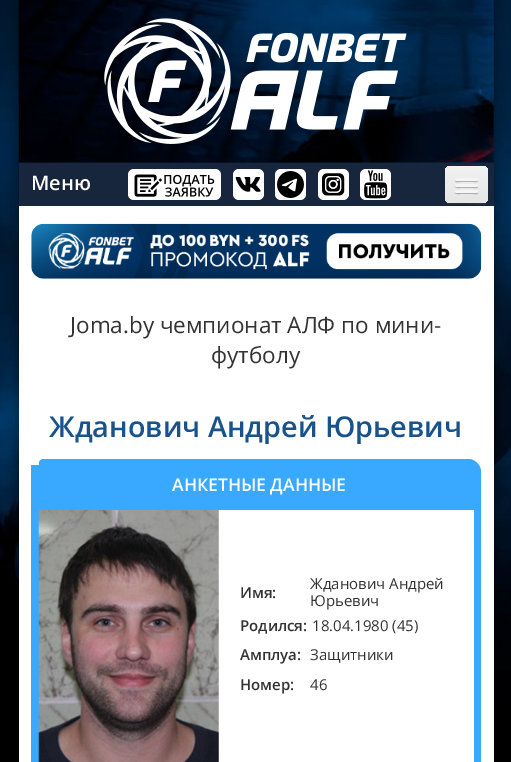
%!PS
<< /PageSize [511 762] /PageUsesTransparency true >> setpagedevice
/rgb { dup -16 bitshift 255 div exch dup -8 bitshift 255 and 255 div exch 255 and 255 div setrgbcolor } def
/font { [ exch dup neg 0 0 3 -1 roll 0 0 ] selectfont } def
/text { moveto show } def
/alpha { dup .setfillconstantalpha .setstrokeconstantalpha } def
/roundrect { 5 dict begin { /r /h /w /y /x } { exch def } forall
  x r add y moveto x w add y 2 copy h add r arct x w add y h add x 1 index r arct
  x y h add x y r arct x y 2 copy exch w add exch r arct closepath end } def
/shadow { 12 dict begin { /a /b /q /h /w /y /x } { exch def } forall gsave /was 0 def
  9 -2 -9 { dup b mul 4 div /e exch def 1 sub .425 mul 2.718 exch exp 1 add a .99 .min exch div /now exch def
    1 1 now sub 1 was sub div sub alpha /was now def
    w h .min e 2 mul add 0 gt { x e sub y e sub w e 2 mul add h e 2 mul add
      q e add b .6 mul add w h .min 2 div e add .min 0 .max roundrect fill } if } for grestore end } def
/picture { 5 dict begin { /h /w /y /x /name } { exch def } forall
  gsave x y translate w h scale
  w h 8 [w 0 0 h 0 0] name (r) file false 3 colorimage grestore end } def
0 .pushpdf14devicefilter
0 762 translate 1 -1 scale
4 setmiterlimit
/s1 { /OpenSans-SemiBold 20 font 16#FFFFFF rgb } def
/s2 { /OpenSans-Regular 22.5 font 16#333333 rgb } def
/s3 { /OpenSans-SemiBold 28.75 font 16#19538B rgb } def
/s4 { /OpenSans-SemiBold 17.5 font 16#FFFFFF rgb } def
/s5 { /OpenSans-SemiBold 15 font 16#333333 rgb } def
/s6 { /OpenSans-Regular 15 font 16#333333 rgb } def
16#FFFFFF rgb
0 0 511 762 rectfill
(pic1.raw) 0 0 511 762 picture
16#000000 rgb
19 0 475 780 0 6 0.5 shadow
(pic2.raw) 18 0 476 163 picture
(pic3.raw) 104 18 303 126 picture
16#17263D rgb
19 163 475 43 rectfill
s1
(Меню) 31 190 text
128 169 93 31 6 roundrect fill
(pic4.raw) 134 174 81 23 picture
233 169 31 31 6 roundrect fill
(pic5.raw) 235 177 26 15 picture
275 169 31 31 6 roundrect fill
(pic6.raw) 277 171 27 27 picture
318 169 31 31 6 roundrect fill
(pic7.raw) 322 173 23 23 picture
360 169 31 31 6 roundrect fill
(pic8.raw) 364 170 24 29 picture
16#28364C rgb
445 198 moveto 445 205 449 204 456 204 curveto 466 204 lineto 489 204 488 208 488 186 curveto 488 182 489 174 487 171 curveto 488 193 lineto 488 205 483 202 472 202 curveto 461 202 lineto 457 202 445 205 445 198 curveto closepath fill
gsave 445 166 43 37 5 roundrect clip newpath
<< /ShadingType 2 /ColorSpace /DeviceRGB /Coords [466 166 466 203] /Extend [true true] /Function << /FunctionType 2 /Domain [0 1] /C0 [0.949 0.949 0.949] /C1 [0.898 0.898 0.898] /N 1 >> >> shfill grestore
0.1 alpha
16#FFFFFF rgb
450 168 moveto 482 168 lineto 485 168 488 170 488 172 curveto 488 165 483 166 478 166 curveto 456 166 lineto 450 166 445 165 445 172 curveto 445 170 447 168 450 168 curveto closepath fill
1 alpha
16#B2B2B2 rgb
455.5 179.5 moveto 455 181 lineto 455.5 183 459 182 460 182 curveto 473 182 lineto 474.5 182 478 183 478 180.5 curveto 477.5 179.5 lineto 476.5 180 lineto 474.5 180.5 456 180.5 455.5 179.5 curveto closepath fill
16#F5F5F5 rgb
455 178 23 3 1.5 roundrect fill
16#B0B0B0 rgb
455 185.5 moveto 453.5 188.5 459.5 188 460 188 curveto 473 188 lineto 474 188 477.5 189 478 187 curveto 478 186.5 478 185.5 477.5 185.5 curveto 476.5 186 lineto 456 186 lineto closepath fill
16#F5F5F5 rgb
455 184 23 3 1.5 roundrect fill
16#AEAEAE rgb
455 192 moveto 454 194.5 459 194 460 194 curveto 473 194 lineto 474 194 477.5 195 478 193 curveto 478 192.5 478 191.5 477.5 191.5 curveto 477.5 192 477 192.5 476 192.5 curveto 456 192.5 lineto 456 192.5 455.5 192 455 192 curveto closepath fill
16#F5F5F5 rgb
455 190 23 3 1.5 roundrect fill
16#FFFFFF rgb
19 206 475 556 rectfill
(pic9.raw) 31 223 451 56 picture
s2
(Joma.by чемпионат АЛФ по мини-) 70 333 text
(футболу) 211 363 text
s3
(Жданович Андрей Юрьевич) 49 437 text
16#38A9FF rgb
31 465 8 297 rectfill
44 459 moveto 468 459 lineto 475 459 481 465 481 472 curveto 481 510 lineto 39 510 lineto 39 464 lineto 39 461 41 459 44 459 curveto closepath fill
44 459 moveto 46 459 lineto 46 510 lineto 39 510 lineto 39 464 lineto 39 461 41 459 44 459 curveto closepath fill
s4
(АНКЕТНЫЕ ДАННЫЕ) 172 491 text
(pic10.raw) 38 510 181 252 picture
16#38A9FF rgb
474 510 7 252 rectfill
s5
(Имя:) 240 598 text
s6
(Жданович Андрей) 310 589 text
(Юрьевич) 310 606 text
s5
(Родился:) 240 631 text
s6
(18.04.1980 \(45\)) 312 631 text
s5
(Амплуа:) 240 660 text
s6
(Защитники) 310 660 text
s5
(Номер:) 240 690 text
s6
(46) 310 690 text
.poppdf14devicefilter showpage
